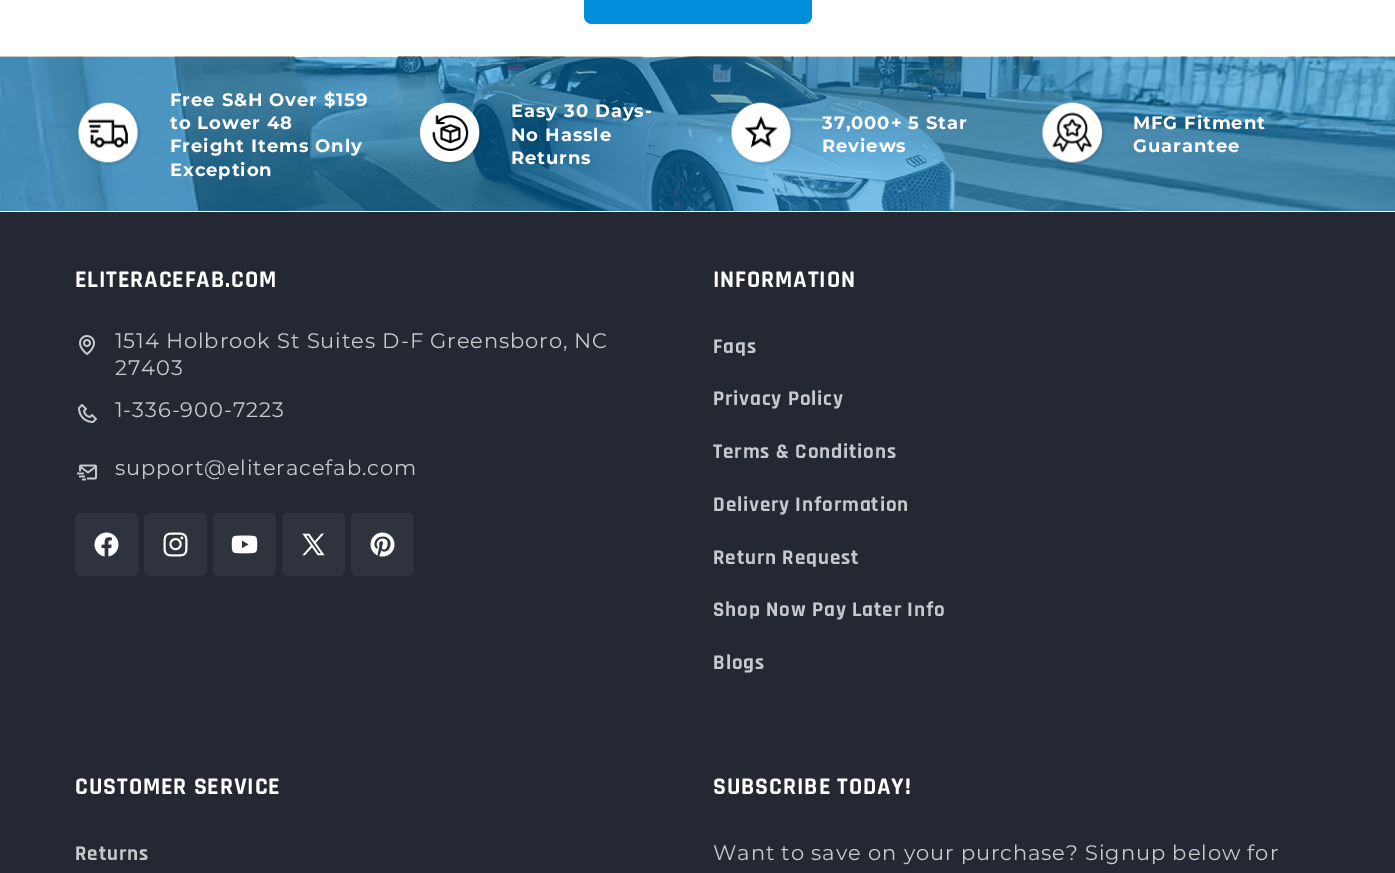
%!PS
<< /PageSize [1395 873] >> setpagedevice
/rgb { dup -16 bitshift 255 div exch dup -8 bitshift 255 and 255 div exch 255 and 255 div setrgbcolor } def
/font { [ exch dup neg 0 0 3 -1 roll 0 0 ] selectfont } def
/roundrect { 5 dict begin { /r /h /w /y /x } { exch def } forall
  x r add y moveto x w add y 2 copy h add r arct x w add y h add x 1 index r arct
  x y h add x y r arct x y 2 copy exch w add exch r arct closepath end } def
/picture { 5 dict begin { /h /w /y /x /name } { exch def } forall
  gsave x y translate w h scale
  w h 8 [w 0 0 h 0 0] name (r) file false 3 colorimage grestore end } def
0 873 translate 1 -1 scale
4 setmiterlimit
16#FFFFFF rgb
0 0 1395 873 rectfill
16#008DD9 rgb
584 -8 228 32 8 roundrect fill
(pic1.raw) 0 56 1395 155 picture
(pic2.raw) 77 101 64 65 picture
/Montserrat-Bold 18 font
16#FFFFFF rgb
170 106 moveto 0.9 0 (Free S&H Over $159) ashow
170 129 moveto 0.9 0 (to Lower 48) ashow
170 152 moveto 0.9 0 (Freight Items Only) ashow
170 176 moveto 0.9 0 (Exception) ashow
(pic3.raw) 419 102 63 63 picture
511 117 moveto 0.9 0 (Easy 30 Days-) ashow
511 141 moveto 0.9 0 (No Hassle) ashow
511 164 moveto 0.9 0 (Returns) ashow
(pic4.raw) 730 102 64 64 picture
822 129 moveto 0.9 0 (37,000+ 5 Star) ashow
822 152 moveto 0.9 0 (Reviews) ashow
(pic5.raw) 1041 102 64 63 picture
1133 129 moveto 0.9 0 (MFG Fitment) ashow
1133 152 moveto 0.9 0 (Guarantee) ashow
16#242833 rgb
0 212 1395 661 rectfill
/Rajdhani-Bold 24 font
16#FFFFFF rgb
75 287 moveto 0.9 0 (ELITERACEFAB.COM) ashow
(pic6.raw) 79 335 16 20 picture
/Montserrat-Regular 21 font
16#C8C9CC rgb
115 348 moveto 0.9 0 (1514 Holbrook St Suites D-F Greensboro, NC) ashow
115 375 moveto 0.9 0 (27403) ashow
(pic7.raw) 78 404 19 19 picture
115 417 moveto 0.9 0 (1-336-900-7223) ashow
(pic8.raw) 77 464 20 17 picture
115 475 moveto 0.9 0 (support@eliteracefab.com) ashow
16#2F333D rgb
75 513 63 63 6 roundrect fill
(pic9.raw) 94 532 25 25 picture
144 513 63 63 6 roundrect fill
(pic10.raw) 163 532 25 25 picture
213 513 63 63 6 roundrect fill
(pic11.raw) 231 535 27 19 picture
282 513 63 63 6 roundrect fill
(pic12.raw) 302 533 23 23 picture
351 513 63 63 6 roundrect fill
(pic13.raw) 370 532 25 25 picture
/Rajdhani-Bold 24 font
16#FFFFFF rgb
713 287 moveto 0.9 0 (INFORMATION) ashow
/Rajdhani-Bold 21 font
16#C8C9CC rgb
713 353 moveto 0.9 0 (Faqs) ashow
713 405 moveto 0.9 0 (Privacy Policy) ashow
713 458 moveto 0.9 0 (Terms & Conditions) ashow
713 511 moveto 0.9 0 (Delivery Information) ashow
713 564 moveto 0.9 0 (Return Request) ashow
713 616 moveto 0.9 0 (Shop Now Pay Later Info) ashow
713 669 moveto 0.9 0 (Blogs) ashow
/Rajdhani-Bold 24 font
16#FFFFFF rgb
75 794 moveto 0.9 0 (CUSTOMER SERVICE) ashow
/Rajdhani-Bold 21 font
16#C8C9CC rgb
75 860 moveto 0.9 0 (Returns) ashow
/Rajdhani-Bold 24 font
16#FFFFFF rgb
713 794 moveto 0.9 0 (SUBSCRIBE TODAY!) ashow
/Montserrat-Regular 21 font
16#C8C9CC rgb
713 860 moveto 0.9 0 (Want to save on your purchase? Signup below for) ashow
showpage
